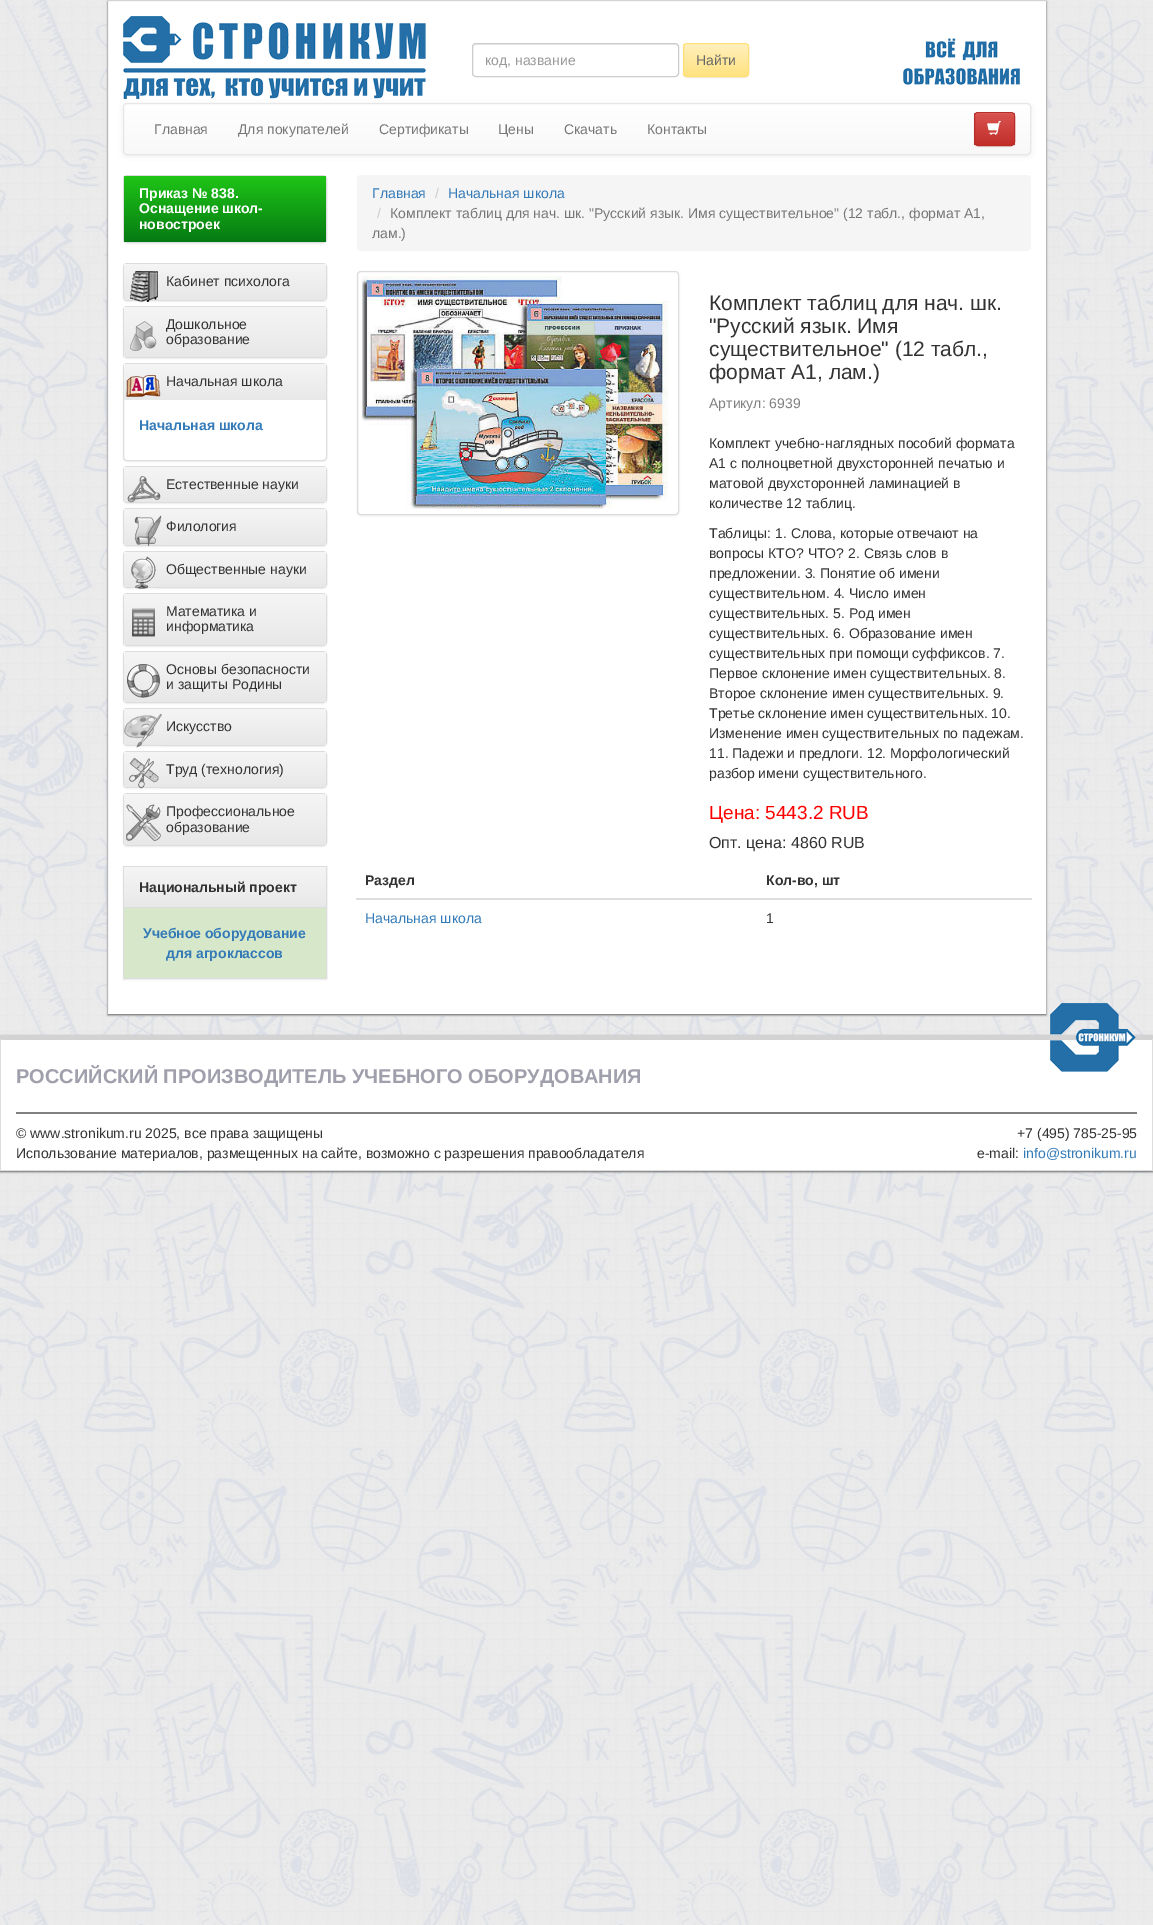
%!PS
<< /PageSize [1153 1925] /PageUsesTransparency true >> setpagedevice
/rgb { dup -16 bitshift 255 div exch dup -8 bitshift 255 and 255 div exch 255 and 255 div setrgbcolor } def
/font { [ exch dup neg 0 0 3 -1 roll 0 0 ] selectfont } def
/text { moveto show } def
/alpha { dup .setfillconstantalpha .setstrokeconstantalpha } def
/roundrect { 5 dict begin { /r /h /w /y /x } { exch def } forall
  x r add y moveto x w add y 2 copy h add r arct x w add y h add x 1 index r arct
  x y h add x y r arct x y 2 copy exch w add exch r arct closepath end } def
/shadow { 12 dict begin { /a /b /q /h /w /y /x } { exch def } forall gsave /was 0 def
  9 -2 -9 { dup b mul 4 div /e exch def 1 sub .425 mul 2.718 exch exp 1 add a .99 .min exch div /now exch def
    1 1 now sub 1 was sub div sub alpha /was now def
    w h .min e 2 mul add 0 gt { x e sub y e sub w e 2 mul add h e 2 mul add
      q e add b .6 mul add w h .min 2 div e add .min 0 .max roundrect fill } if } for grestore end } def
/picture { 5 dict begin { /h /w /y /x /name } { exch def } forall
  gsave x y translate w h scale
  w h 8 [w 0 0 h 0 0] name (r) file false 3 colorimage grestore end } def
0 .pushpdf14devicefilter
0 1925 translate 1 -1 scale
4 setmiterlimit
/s1 { /LiberationSans-Regular 14 font 16#999999 rgb } def
/s2 { /LiberationSans-Regular 14 font 16#666666 rgb } def
/s3 { /LiberationSans-Regular 14 font 16#777777 rgb } def
/s4 { /LiberationSans-Bold 14 font 16#FFFFFF rgb } def
/s5 { /LiberationSans-Regular 14 font 16#333333 rgb } def
/s6 { /LiberationSans-Bold 14 font 16#337AB7 rgb } def
/s7 { /LiberationSans-Bold 14 font 16#333333 rgb } def
/s8 { /LiberationSans-Regular 14 font 16#337AB7 rgb } def
/s9 { /LiberationSans-Regular 14 font 16#CCCCCC rgb } def
/s10 { /LiberationSans-Regular 21 font 16#333333 rgb } def
/s11 { /LiberationSans-Regular 14 font 16#808080 rgb } def
/s12 { /LiberationSans-Regular 19 font 16#FF0000 rgb } def
/s13 { /LiberationSans-Regular 16 font 16#333333 rgb } def
/s14 { /LiberationSans-Bold 20 font 16#A0A0AC rgb } def
16#FFFFFF rgb
0 0 1153 1925 rectfill
(pic1.raw) 0 0 1153 1925 picture
16#000000 rgb
107 1 940 1015 0 1 0.05 shadow
16#FFFFFF rgb
107.5 0.5 moveto 1046.5 0.5 lineto 1046.5 1014.5 lineto 107.5 1014.5 lineto closepath gsave fill grestore
16#DDDDDD rgb
stroke
gsave
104 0 moveto 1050 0 lineto 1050 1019 lineto 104 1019 lineto closepath 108 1 moveto 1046 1 lineto 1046 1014 lineto 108 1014 lineto closepath eoclip newpath
16#666666 rgb
108 2 938 1013 0 1 1 shadow
grestore
(pic2.raw) 123 16 303 83 picture
16#ECECEC rgb
476 45 moveto 675 45 lineto 677 45 678 46 678 48 curveto 678 46 677 44 675 44 curveto 476 44 lineto 474 44 473 46 473 48 curveto 473 46 474 45 476 45 curveto closepath fill
16#CCCCCC rgb
472.5 43.5 206 33 3.5 roundrect stroke
s1
(код, название) 485 65 text
16#000000 rgb
683 44 66 34 4 0.5 0.07 shadow
gsave
683 43 66 34 4 roundrect clip newpath
gsave 683 44 moveto 749 44 lineto 749 76 lineto 683 76 lineto closepath clip newpath
<< /ShadingType 2 /ColorSpace /DeviceRGB /Coords [716 44 716 76] /Extend [true true] /Function << /FunctionType 2 /Domain [0 1] /C0 [1 0.941 0.741] /C1 [1 0.886 0.502] /N 1 >> >> shfill grestore
grestore
16#FFF2C6 rgb
687 45 moveto 745 45 lineto 747 45 748 46 748 48 curveto 748 42 740 44 735 44 curveto 697 44 lineto 692 44 684 42 684 48 curveto 684 46 685 45 687 45 curveto closepath fill
16#FFE076 rgb
683.5 43.5 65 33 3.5 roundrect stroke
s2
(Найти) 696 65 text
(pic3.raw) 903 38 117 47 picture
16#000000 rgb
123 104 908 52 4 2.5 0.07 shadow
gsave
123 103 908 52 4 roundrect clip newpath
gsave 123 104 moveto 1031 104 lineto 1031 154 lineto 123 154 lineto closepath clip newpath
<< /ShadingType 2 /ColorSpace /DeviceRGB /Coords [577 104 577 154] /Extend [true true] /Function << /FunctionType 2 /Domain [0 1] /C0 [1 1 1] /C1 [0.973 0.973 0.973] /N 1 >> >> shfill grestore
grestore
16#E7E7E7 rgb
123.5 103.5 907 51 3.5 roundrect stroke
s3
(Главная) 154 134 text
(Для покупателей) 238 134 text
(Сертификаты) 379 134 text
(Цены) 498 134 text
(Скачать) 564 134 text
(Контакты) 647 134 text
16#000000 rgb
974 113 41 34 4 0.5 0.07 shadow
gsave
974 112 41 34 4 roundrect clip newpath
gsave 974 113 moveto 1015 113 lineto 1015 145 lineto 974 145 lineto closepath clip newpath
<< /ShadingType 2 /ColorSpace /DeviceRGB /Coords [995 113 995 145] /Extend [true true] /Function << /FunctionType 2 /Domain [0 1] /C0 [0.851 0.325 0.31] /C1 [0.757 0.18 0.165] /N 1 >> >> shfill grestore
grestore
16#DF6C69 rgb
978 114 moveto 1011 114 lineto 1013 114 1014 115 1014 117 curveto 1014 111.5 1010 113 1005.5 113 curveto 983.5 113 lineto 979 113 975 111.5 975 117 curveto 975 115 976 114 978 114 curveto closepath fill
16#B92C28 rgb
974.5 112.5 40 33 3.5 roundrect stroke
(pic4.raw) 987 121 14 14 picture
16#000000 rgb
123 176 204 68 4 1 0.05 shadow
16#DDDDDD rgb
123.5 175.5 203 67 3.5 roundrect stroke
gsave 124 176 moveto 326 176 lineto 326 242 lineto 124 242 lineto closepath clip newpath
<< /ShadingType 2 /ColorSpace /DeviceRGB /Coords [225 176 225 242] /Extend [true true] /Function << /FunctionType 2 /Domain [0 1] /C0 [0.122 0.773 0.09] /C1 [0.02 0.478 0.075] /N 1 >> >> shfill grestore
s4
(Приказ № 838.) 139 198 text
(Оснащение школ-) 139 213 text
(новостроек) 139 229 text
16#000000 rgb
123 264 204 38 4 1 0.05 shadow
16#DDDDDD rgb
123.5 263.5 203 37 3.5 roundrect stroke
gsave 124 264 moveto 326 264 lineto 326 300 lineto 124 300 lineto closepath clip newpath
<< /ShadingType 2 /ColorSpace /DeviceRGB /Coords [225 264 225 300] /Extend [true true] /Function << /FunctionType 2 /Domain [0 1] /C0 [0.961 0.961 0.961] /C1 [0.91 0.91 0.91] /N 1 >> >> shfill grestore
(pic5.raw) 130 271 28 31 picture
s5
(Кабинет психолога) 166 286 text
16#000000 rgb
123 307 204 52 4 1 0.05 shadow
16#DDDDDD rgb
123.5 306.5 203 51 3.5 roundrect stroke
gsave 124 307 moveto 326 307 lineto 326 357 lineto 124 357 lineto closepath clip newpath
<< /ShadingType 2 /ColorSpace /DeviceRGB /Coords [225 307 225 357] /Extend [true true] /Function << /FunctionType 2 /Domain [0 1] /C0 [0.961 0.961 0.961] /C1 [0.91 0.91 0.91] /N 1 >> >> shfill grestore
(pic6.raw) 130 321 27 30 picture
s5
(Дошкольное) 166 329 text
(образование) 166 344 text
16#000000 rgb
123 364 204 98 4 1 0.05 shadow
16#FFFFFF rgb
123.5 363.5 203 97 3.5 roundrect gsave fill grestore
16#DDDDDD rgb
stroke
gsave 124 364 moveto 326 364 lineto 326 400 lineto 124 400 lineto closepath clip newpath
<< /ShadingType 2 /ColorSpace /DeviceRGB /Coords [225 364 225 400] /Extend [true true] /Function << /FunctionType 2 /Domain [0 1] /C0 [0.961 0.961 0.961] /C1 [0.91 0.91 0.91] /N 1 >> >> shfill grestore
(pic7.raw) 126 375 35 22 picture
s5
(Начальная школа) 166 386 text
s6
(Начальная школа) 139 430 text
16#000000 rgb
123 467 204 37 4 1 0.05 shadow
16#DDDDDD rgb
123.5 466.5 203 36 3.5 roundrect stroke
gsave 124 467 moveto 326 467 lineto 326 502 lineto 124 502 lineto closepath clip newpath
<< /ShadingType 2 /ColorSpace /DeviceRGB /Coords [225 467 225 502] /Extend [true true] /Function << /FunctionType 2 /Domain [0 1] /C0 [0.961 0.961 0.961] /C1 [0.91 0.91 0.91] /N 1 >> >> shfill grestore
(pic8.raw) 127 476 34 27 picture
s5
(Естественные науки) 166 489 text
16#000000 rgb
123 509 204 38 4 1 0.05 shadow
16#DDDDDD rgb
123.5 508.5 203 37 3.5 roundrect stroke
gsave 124 509 moveto 326 509 lineto 326 545 lineto 124 545 lineto closepath clip newpath
<< /ShadingType 2 /ColorSpace /DeviceRGB /Coords [225 509 225 545] /Extend [true true] /Function << /FunctionType 2 /Domain [0 1] /C0 [0.961 0.961 0.961] /C1 [0.91 0.91 0.91] /N 1 >> >> shfill grestore
(pic9.raw) 134 515 28 31 picture
s5
(Филология) 166 531 text
16#000000 rgb
123 552 204 37 4 1 0.05 shadow
16#DDDDDD rgb
123.5 551.5 203 36 3.5 roundrect stroke
gsave 124 552 moveto 326 552 lineto 326 587 lineto 124 587 lineto closepath clip newpath
<< /ShadingType 2 /ColorSpace /DeviceRGB /Coords [225 552 225 587] /Extend [true true] /Function << /FunctionType 2 /Domain [0 1] /C0 [0.961 0.961 0.961] /C1 [0.91 0.91 0.91] /N 1 >> >> shfill grestore
(pic10.raw) 131 556 25 33 picture
s5
(Общественные науки) 166 574 text
16#000000 rgb
123 594 204 53 4 1 0.05 shadow
16#DDDDDD rgb
123.5 593.5 203 52 3.5 roundrect stroke
gsave 124 594 moveto 326 594 lineto 326 645 lineto 124 645 lineto closepath clip newpath
<< /ShadingType 2 /ColorSpace /DeviceRGB /Coords [225 594 225 645] /Extend [true true] /Function << /FunctionType 2 /Domain [0 1] /C0 [0.961 0.961 0.961] /C1 [0.91 0.91 0.91] /N 1 >> >> shfill grestore
(pic11.raw) 132 608 23 29 picture
s5
(Математика и) 166 616 text
(информатика) 166 631 text
16#000000 rgb
123 652 204 52 4 1 0.05 shadow
16#DDDDDD rgb
123.5 651.5 203 51 3.5 roundrect stroke
gsave 124 652 moveto 326 652 lineto 326 702 lineto 124 702 lineto closepath clip newpath
<< /ShadingType 2 /ColorSpace /DeviceRGB /Coords [225 652 225 702] /Extend [true true] /Function << /FunctionType 2 /Domain [0 1] /C0 [0.961 0.961 0.961] /C1 [0.91 0.91 0.91] /N 1 >> >> shfill grestore
(pic12.raw) 127 664 34 34 picture
s5
(Основы безопасности) 166 674 text
(и защиты Родины) 166 689 text
16#000000 rgb
123 709 204 38 4 1 0.05 shadow
16#DDDDDD rgb
123.5 708.5 203 37 3.5 roundrect stroke
gsave 124 709 moveto 326 709 lineto 326 745 lineto 124 745 lineto closepath clip newpath
<< /ShadingType 2 /ColorSpace /DeviceRGB /Coords [225 709 225 745] /Extend [true true] /Function << /FunctionType 2 /Domain [0 1] /C0 [0.961 0.961 0.961] /C1 [0.91 0.91 0.91] /N 1 >> >> shfill grestore
(pic13.raw) 124 714 38 34 picture
s5
(Искусство) 166 731 text
16#000000 rgb
123 752 204 37 4 1 0.05 shadow
16#DDDDDD rgb
123.5 751.5 203 36 3.5 roundrect stroke
gsave 124 752 moveto 326 752 lineto 326 787 lineto 124 787 lineto closepath clip newpath
<< /ShadingType 2 /ColorSpace /DeviceRGB /Coords [225 752 225 787] /Extend [true true] /Function << /FunctionType 2 /Domain [0 1] /C0 [0.961 0.961 0.961] /C1 [0.91 0.91 0.91] /N 1 >> >> shfill grestore
(pic14.raw) 129 757 30 32 picture
s5
(Труд \(технология\)) 166 774 text
16#000000 rgb
123 794 204 53 4 1 0.05 shadow
16#DDDDDD rgb
123.5 793.5 203 52 3.5 roundrect stroke
gsave 124 794 moveto 326 794 lineto 326 845 lineto 124 845 lineto closepath clip newpath
<< /ShadingType 2 /ColorSpace /DeviceRGB /Coords [225 794 225 845] /Extend [true true] /Function << /FunctionType 2 /Domain [0 1] /C0 [0.961 0.961 0.961] /C1 [0.91 0.91 0.91] /N 1 >> >> shfill grestore
(pic15.raw) 126 804 35 37 picture
s5
(Профессиональное) 166 816 text
(образование) 166 832 text
16#000000 rgb
123 867 204 113 0 1 0.05 shadow
16#DDDDDD rgb
123.5 866.5 203 112 rectstroke
gsave 127 867 moveto 323 867 lineto 324.5 867 326 868.5 326 870 curveto 326 907 lineto 124 907 lineto 124 870 lineto 124 868.5 125.5 867 127 867 curveto closepath clip newpath
<< /ShadingType 2 /ColorSpace /DeviceRGB /Coords [225 867 225 907] /Extend [true true] /Function << /FunctionType 2 /Domain [0 1] /C0 [0.961 0.961 0.961] /C1 [0.91 0.91 0.91] /N 1 >> >> shfill grestore
124 907 202 1 rectfill
s7
(Национальный проект) 139 892 text
16#D7E8CA rgb
124 908 202 70 rectfill
s6
(Учебное оборудование) 143 938 text
(для агроклассов) 166 958 text
16#F5F5F5 rgb
357 175 674 76 4 roundrect fill
s8
(Главная) 372 198 text
s9
(/) 435 198 text
s8
(Начальная школа) 448 198 text
s9
(/) 377 218 text
s3
(Комплект таблиц для нач. шк. "Русский язык. Имя существительное" \(12 табл., формат А1,) 390 218 text
(лам.\)) 372 238 text
16#000000 rgb
357 272 322 244 4 1 0.07 shadow
16#FFFFFF rgb
357.5 271.5 321 243 3.5 roundrect gsave fill grestore
16#DDDDDD rgb
stroke
(pic16.raw) 362 276 306 233 picture
s10
(Комплект таблиц для нач. шк.) 709 310 text
("Русский язык. Имя) 709 333 text
(существительное" \(12 табл.,) 709 356 text
(формат А1, лам.\)) 709 379 text
s11
(Артикул: 6939) 709 408 text
s5
(Комплект учебно-наглядных пособий формата) 709 448 text
(А1 с полноцветной двухсторонней печатью и) 709 468 text
(матовой двухсторонней ламинацией в) 709 488 text
(количестве 12 таблиц.) 709 508 text
(Таблицы: 1. Слова, которые отвечают на) 709 538 text
(вопросы КТО? ЧТО? 2. Связь слов в) 709 558 text
(предложении. 3. Понятие об имени) 709 578 text
(существительном. 4. Число имен) 709 598 text
(существительных. 5. Род имен) 709 618 text
(существительных. 6. Образование имен) 709 638 text
(существительных при помощи суффиксов. 7.) 709 658 text
(Первое склонение имен существительных. 8.) 709 678 text
(Второе склонение имен существительных. 9.) 709 698 text
(Третье склонение имен существительных. 10.) 709 718 text
(Изменение имен существительных по падежам.) 709 738 text
(11. Падежи и предлоги. 12. Морфологический) 709 758 text
(разбор имени существительного.) 709 778 text
s12
(Цена: 5443.2 RUB) 709 819 text
s13
(Опт. цена: 4860 RUB) 709 848 text
s7
(Раздел) 365 885 text
16#DDDDDD rgb
356 898 676 2 rectfill
s7
(Кол-во, шт) 766 885 text
s8
(Начальная школа) 365 923 text
s5
(1) 766 923 text
16#666666 rgb
0 1036 1153 136 0 1 1 shadow
16#FFFFFF rgb
1 1040 1151 130 rectfill
16#D3D3D3 rgb
0 1035 moveto 1153 1035 lineto 1152 1040 lineto 1 1040 lineto closepath fill
16#DDDDDD rgb
1153 1035 moveto 1153 1171 lineto 1152 1170 lineto 1152 1040 lineto closepath fill
0 1170 1153 1 rectfill
0 1171 moveto 0 1035 lineto 1 1040 lineto 1 1170 lineto closepath fill
(pic17.raw) 1050 1003 86 69 picture
16#808080 rgb
16 1112 1121 2 rectfill
s14
(РОССИЙСКИЙ ПРОИЗВОДИТЕЛЬ УЧЕБНОГО ОБОРУДОВАНИЯ) 16 1083 text
s5
(© www.stronikum.ru 2025, все права защищены) 16 1138 text
(Использование материалов, размещенных на сайте, возможно с разрешения правообладателя) 16 1158 text
(+7 \(495\) 785-25-95) 1017 1138 text
(e-mail:) 977 1158 text
s8
(info@stronikum.ru) 1023 1158 text
.poppdf14devicefilter showpage
